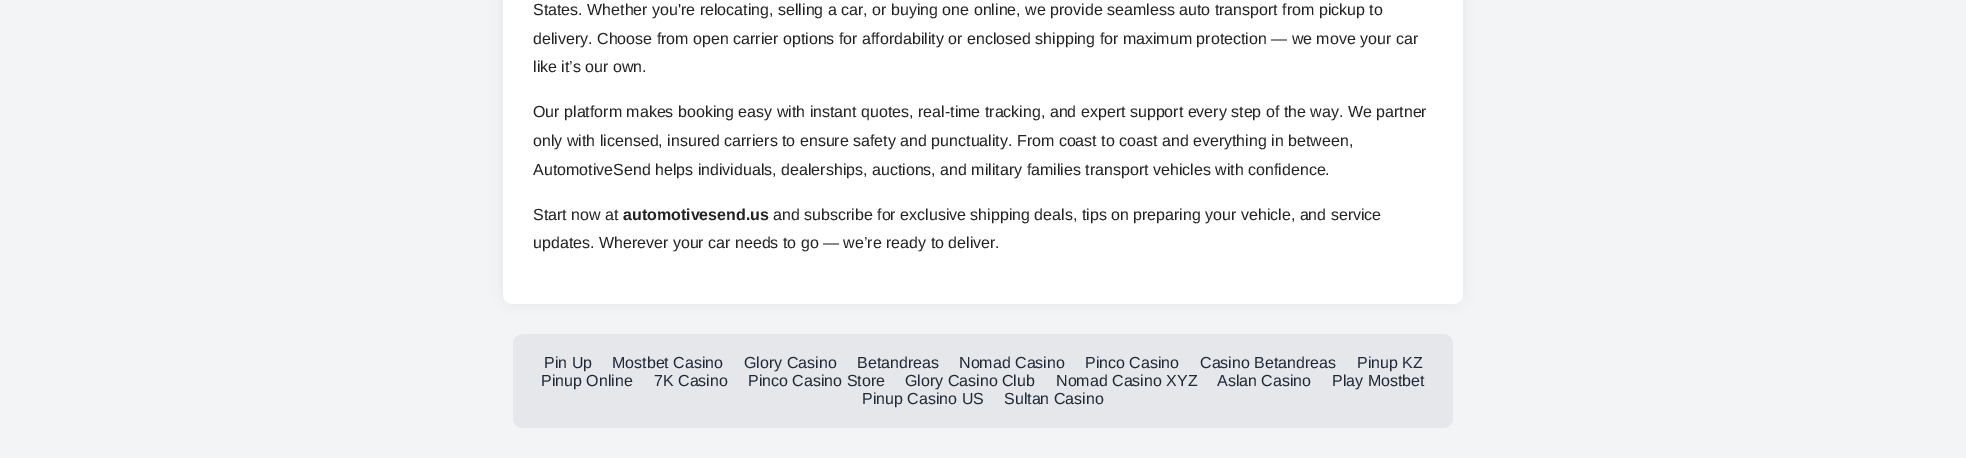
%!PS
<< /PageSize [1966 458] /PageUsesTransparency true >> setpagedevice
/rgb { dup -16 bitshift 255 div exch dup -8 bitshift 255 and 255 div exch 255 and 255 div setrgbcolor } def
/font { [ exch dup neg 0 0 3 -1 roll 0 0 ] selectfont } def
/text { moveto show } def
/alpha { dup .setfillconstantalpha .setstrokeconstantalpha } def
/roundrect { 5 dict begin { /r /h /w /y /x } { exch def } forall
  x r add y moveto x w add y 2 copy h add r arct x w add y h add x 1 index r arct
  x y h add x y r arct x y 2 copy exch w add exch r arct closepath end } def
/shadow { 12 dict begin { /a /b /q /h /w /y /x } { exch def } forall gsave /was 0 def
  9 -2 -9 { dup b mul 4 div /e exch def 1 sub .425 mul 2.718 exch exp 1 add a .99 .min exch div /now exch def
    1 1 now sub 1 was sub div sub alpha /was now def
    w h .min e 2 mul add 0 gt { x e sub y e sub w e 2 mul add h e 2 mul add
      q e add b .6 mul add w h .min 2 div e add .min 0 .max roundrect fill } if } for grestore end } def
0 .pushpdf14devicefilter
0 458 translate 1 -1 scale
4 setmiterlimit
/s1 { /LiberationSans-Regular 16 font 16#222222 rgb } def
/s2 { /LiberationSans-Bold 16 font 16#222222 rgb } def
/s3 { /LiberationSans-Regular 16 font 16#1F2937 rgb } def
16#F3F4F6 rgb
0 0 1966 458 rectfill
16#000000 rgb
503 -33 960 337 10 7.5 0.05 shadow
16#FFFFFF rgb
503 -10 960 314 10 roundrect fill
s1
(States. Whether you're relocating, selling a car, or buying one online, we provide seamless auto transport from pickup to) 533 15 text
(delivery. Choose from open carrier options for affordability or enclosed shipping for maximum protection — we move your car) 533 44 text
(like it’s our own.) 533 72 text
(Our platform makes booking easy with instant quotes, real-time tracking, and expert support every step of the way. We partner) 533 117 text
(only with licensed, insured carriers to ensure safety and punctuality. From coast to coast and everything in between,) 533 146 text
(AutomotiveSend helps individuals, dealerships, auctions, and military families transport vehicles with confidence.) 533 175 text
(Start now at) 533 220 text
s2
(automotivesend.us) 623 220 text
s1
(and subscribe for exclusive shipping deals, tips on preparing your vehicle, and service) 773 220 text
(updates. Wherever your car needs to go — we’re ready to deliver.) 533 248 text
16#E5E7EB rgb
513 334 940 94 10 roundrect fill
s3
(Pin Up) 544 368 text
(Mostbet Casino) 612 368 text
(Glory Casino) 744 368 text
(Betandreas) 857 368 text
(Nomad Casino) 959 368 text
(Pinco Casino) 1085 368 text
(Casino Betandreas) 1200 368 text
(Pinup KZ) 1357 368 text
(Pinup Online) 541 386 text
(7K Casino) 654 386 text
(Pinco Casino Store) 748 386 text
(Glory Casino Club) 905 386 text
(Nomad Casino XYZ) 1056 386 text
(Aslan Casino) 1217 386 text
(Play Mostbet) 1332 386 text
(Pinup Casino US) 862 404 text
(Sultan Casino) 1004 404 text
.poppdf14devicefilter showpage
